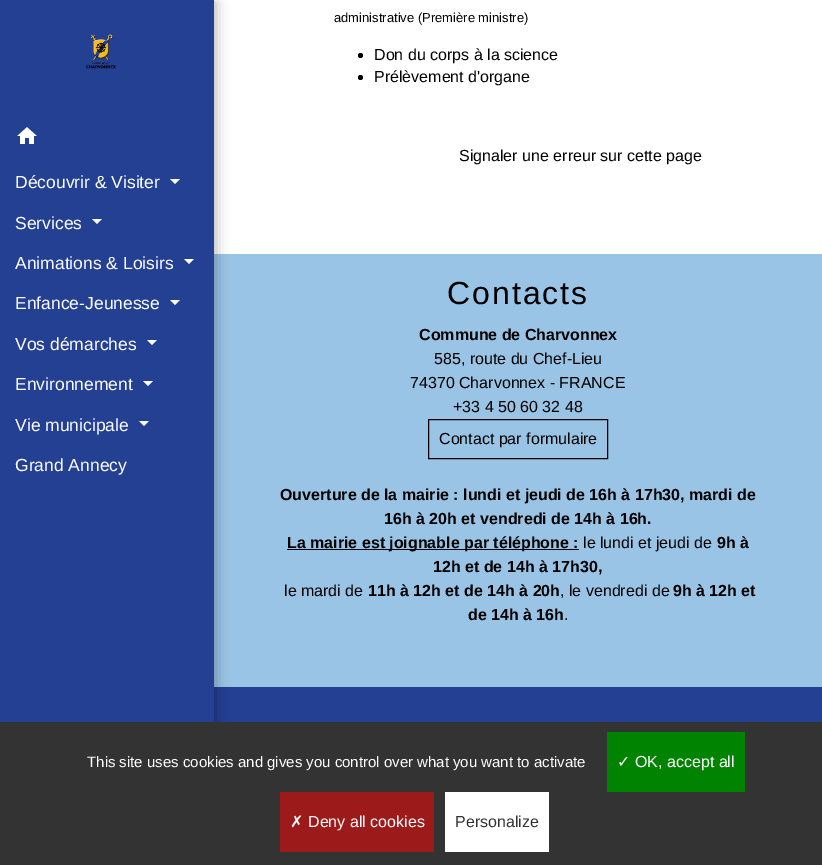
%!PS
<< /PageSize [822 865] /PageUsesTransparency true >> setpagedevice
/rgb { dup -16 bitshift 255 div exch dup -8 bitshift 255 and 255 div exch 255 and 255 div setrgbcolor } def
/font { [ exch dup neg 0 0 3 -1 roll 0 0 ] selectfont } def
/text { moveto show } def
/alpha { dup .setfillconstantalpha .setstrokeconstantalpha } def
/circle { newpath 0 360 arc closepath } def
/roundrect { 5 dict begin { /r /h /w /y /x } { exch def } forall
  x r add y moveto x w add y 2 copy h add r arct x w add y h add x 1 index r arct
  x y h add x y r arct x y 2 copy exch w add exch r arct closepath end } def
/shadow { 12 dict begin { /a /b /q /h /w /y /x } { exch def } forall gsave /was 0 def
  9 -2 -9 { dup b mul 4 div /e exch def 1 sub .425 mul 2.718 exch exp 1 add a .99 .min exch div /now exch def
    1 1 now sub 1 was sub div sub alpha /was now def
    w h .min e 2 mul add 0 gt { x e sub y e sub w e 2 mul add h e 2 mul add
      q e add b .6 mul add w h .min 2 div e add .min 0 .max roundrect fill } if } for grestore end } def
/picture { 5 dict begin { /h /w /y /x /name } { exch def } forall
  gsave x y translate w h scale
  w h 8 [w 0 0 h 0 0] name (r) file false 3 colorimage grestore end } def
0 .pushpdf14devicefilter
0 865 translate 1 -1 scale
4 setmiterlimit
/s1 { /LiberationSans-Regular 13 font 16#000000 rgb } def
/s2 { /LiberationSans-Regular 16 font 16#000000 rgb } def
/s3 { /LiberationSans-Regular 17.5 font 16#FFFFFF rgb } def
/s4 { /LiberationSans-Bold 16 font 16#000000 rgb } def
/s5 { /LiberationSans-Regular 15 font 16#FFFFFF rgb } def
/s6 { /DejaVuSans-Regular 16 font 16#FFFFFF rgb } def
/s7 { /LiberationSans-Regular 16 font 16#FFFFFF rgb } def
/s8 { /LiberationSans-Regular 16 font 16#333333 rgb } def
16#FFFFFF rgb
0 0 822 865 rectfill
s1
(administrative \(Première ministre\)) 334 22 text
360.5 55.5 2.5 circle fill
s2
(Don du corps à la science) 374 60 text
360.5 77.5 2.5 circle fill
(Prélèvement d'organe) 374 82 text
(Signaler une erreur sur cette page) 459 161 text
16#9AC4E5 rgb
214 254 608 433 rectfill
16#234093 rgb
214 687 608 35 rectfill
16#000000 rgb
2 2 214 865 0 6.5 0.3 shadow
16#234093 rgb
0 0 214 722 rectfill
(pic1.raw) 86 34 30 35 picture
(pic2.raw) 17 127 20 17 picture
s3
(Découvrir & Visiter) 15 188 text
170 179 moveto 180 179 lineto 175 184 lineto closepath fill
(Services) 15 229 text
92 219 moveto 102 219 lineto 97 224 lineto closepath fill
(Animations & Loisirs) 15 269 text
184 259 moveto 194 259 lineto 189 264 lineto closepath fill
(Enfance-Jeunesse) 15 309 text
170 300 moveto 180 300 lineto 175 305 lineto closepath fill
(Vos démarches) 15 350 text
147 340 moveto 157 340 lineto 152 345 lineto closepath fill
(Environnement) 15 390 text
143 381 moveto 153 381 lineto 148 386 lineto closepath fill
(Vie municipale) 15 431 text
139 421 moveto 149 421 lineto 144 426 lineto closepath fill
(Grand Annecy) 15 471 text
/LiberationSans-Regular 32 font
16#000000 rgb
447 304 moveto 2 0 (Contacts) ashow
s4
(Commune de Charvonnex) 419 340 text
s2
(585, route du Chef-Lieu) 434 364 text
(74370 Charvonnex - FRANCE) 410 388 text
(+33 4 50 60 32 48) 453 412 text
428.5 419.5 179 39 rectstroke
(Contact par formulaire) 439 444 text
s4
(Ouverture de la mairie : lundi et jeudi de 16h à 17h30, mardi de) 280 500 text
(16h à 20h et vendredi de 14h à 16h.) 384 524 text
287 549 292 1 rectfill
(La mairie est joignable par téléphone :) 287 548 text
s2
(le lundi et jeudi de) 583 548 text
s4
(9h à) 717 548 text
(12h et de 14h à 17h30,) 433 572 text
s2
(le mardi de) 284 596 text
s4
(11h à 12h et de 14h à 20h) 368 596 text
s2
(, le vendredi de) 560 596 text
s4
(9h à 12h et) 673 596 text
(de 14h à 16h) 468 620 text
s2
(.) 564 620 text
16#333333 rgb
0 722 822 143 rectfill
s5
(This site uses cookies and gives you control over what you want to activate) 87 767 text
16#008300 rgb
607 732 138 60 rectfill
s6
(✓) 617 767 text
s7
(OK, accept all) 635 767 text
16#9C1A1A rgb
280 792 154 60 rectfill
s6
(✗) 290 827 text
s7
(Deny all cookies) 308 827 text
445 792 104 60 rectfill
s8
(Personalize) 455 827 text
.poppdf14devicefilter showpage
